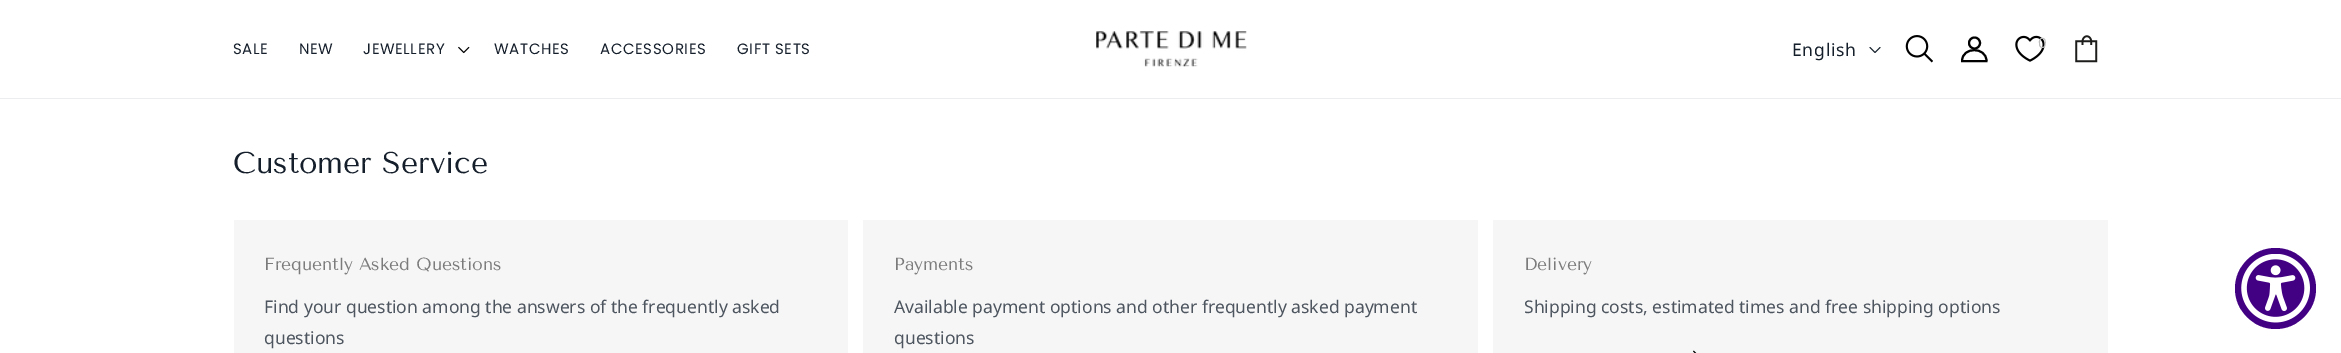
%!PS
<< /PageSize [2341 353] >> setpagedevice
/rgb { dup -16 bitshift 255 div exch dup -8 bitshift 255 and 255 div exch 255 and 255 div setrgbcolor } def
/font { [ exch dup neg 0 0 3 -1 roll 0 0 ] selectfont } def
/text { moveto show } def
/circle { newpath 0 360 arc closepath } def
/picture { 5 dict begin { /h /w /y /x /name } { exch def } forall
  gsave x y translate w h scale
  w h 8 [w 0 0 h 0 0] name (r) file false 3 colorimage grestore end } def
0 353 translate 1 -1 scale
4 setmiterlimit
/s1 { /TenorSans-Regular 30 font 16#151F2B rgb } def
/s2 { /TenorSans-Regular 17.5 font 16#7B7B7B rgb } def
/s3 { /NotoSans-Regular 17.5 font 16#4D555E rgb } def
16#FFFFFF rgb
0 0 2341 353 rectfill
16#ECEDEE rgb
0 98 2341 1 rectfill
/poppins-Regular 15 font
16#151F2B rgb
233 54 moveto 0.6 0 (SALE) ashow
299 54 moveto 0.6 0 (NEW) ashow
363 54 moveto 0.6 0 (JEWELLERY) ashow
(pic1.raw) 458 46 12 8 picture
494 54 moveto 0.6 0 (WATCHES) ashow
600 54 moveto 0.6 0 (ACCESSORIES) ashow
737 54 moveto 0.6 0 (GIFT SETS) ashow
(pic2.raw) 1096 31 151 36 picture
/NotoSans-Regular 17.5 font
1792 56 moveto 0.75 0 (English) ashow
(pic3.raw) 1869 47 12 6 picture
(pic4.raw) 1905 35 28 28 picture
16#000000 rgb
2 setlinewidth
1974.5 43 5.5 circle stroke
1962 61 moveto 1962 46.5 1986.5 46.5 1986.5 61 curveto 1961 61 moveto 1987.5 61 lineto stroke
(pic5.raw) 2015 35 30 27 picture
/poppins-Regular 14 font
16#BCBCBC rgb
2038 48 moveto 0.6 0 (0) ashow
(pic6.raw) 2075 35 23 28 picture
s1
(Customer Service) 233 173 text
16#F6F6F7 rgb
234 220 614 133 rectfill
s2
(Frequently Asked Questions) 264 270 text
s3
(Find your question among the answers of the frequently asked) 264 313 text
(questions) 264 344 text
16#F6F6F7 rgb
863 220 615 133 rectfill
s2
(Payments) 894 270 text
s3
(Available payment options and other frequently asked payment) 894 313 text
(questions) 894 344 text
16#F6F6F7 rgb
1493 220 615 133 rectfill
s2
(Delivery) 1524 270 text
s3
(Shipping costs, estimated times and free shipping options) 1524 313 text
(pic7.raw) 1693 350 4 3 picture
16#420083 rgb
2275.5 288.5 40.5 circle fill
(pic8.raw) 2241 254 69 69 picture
showpage
